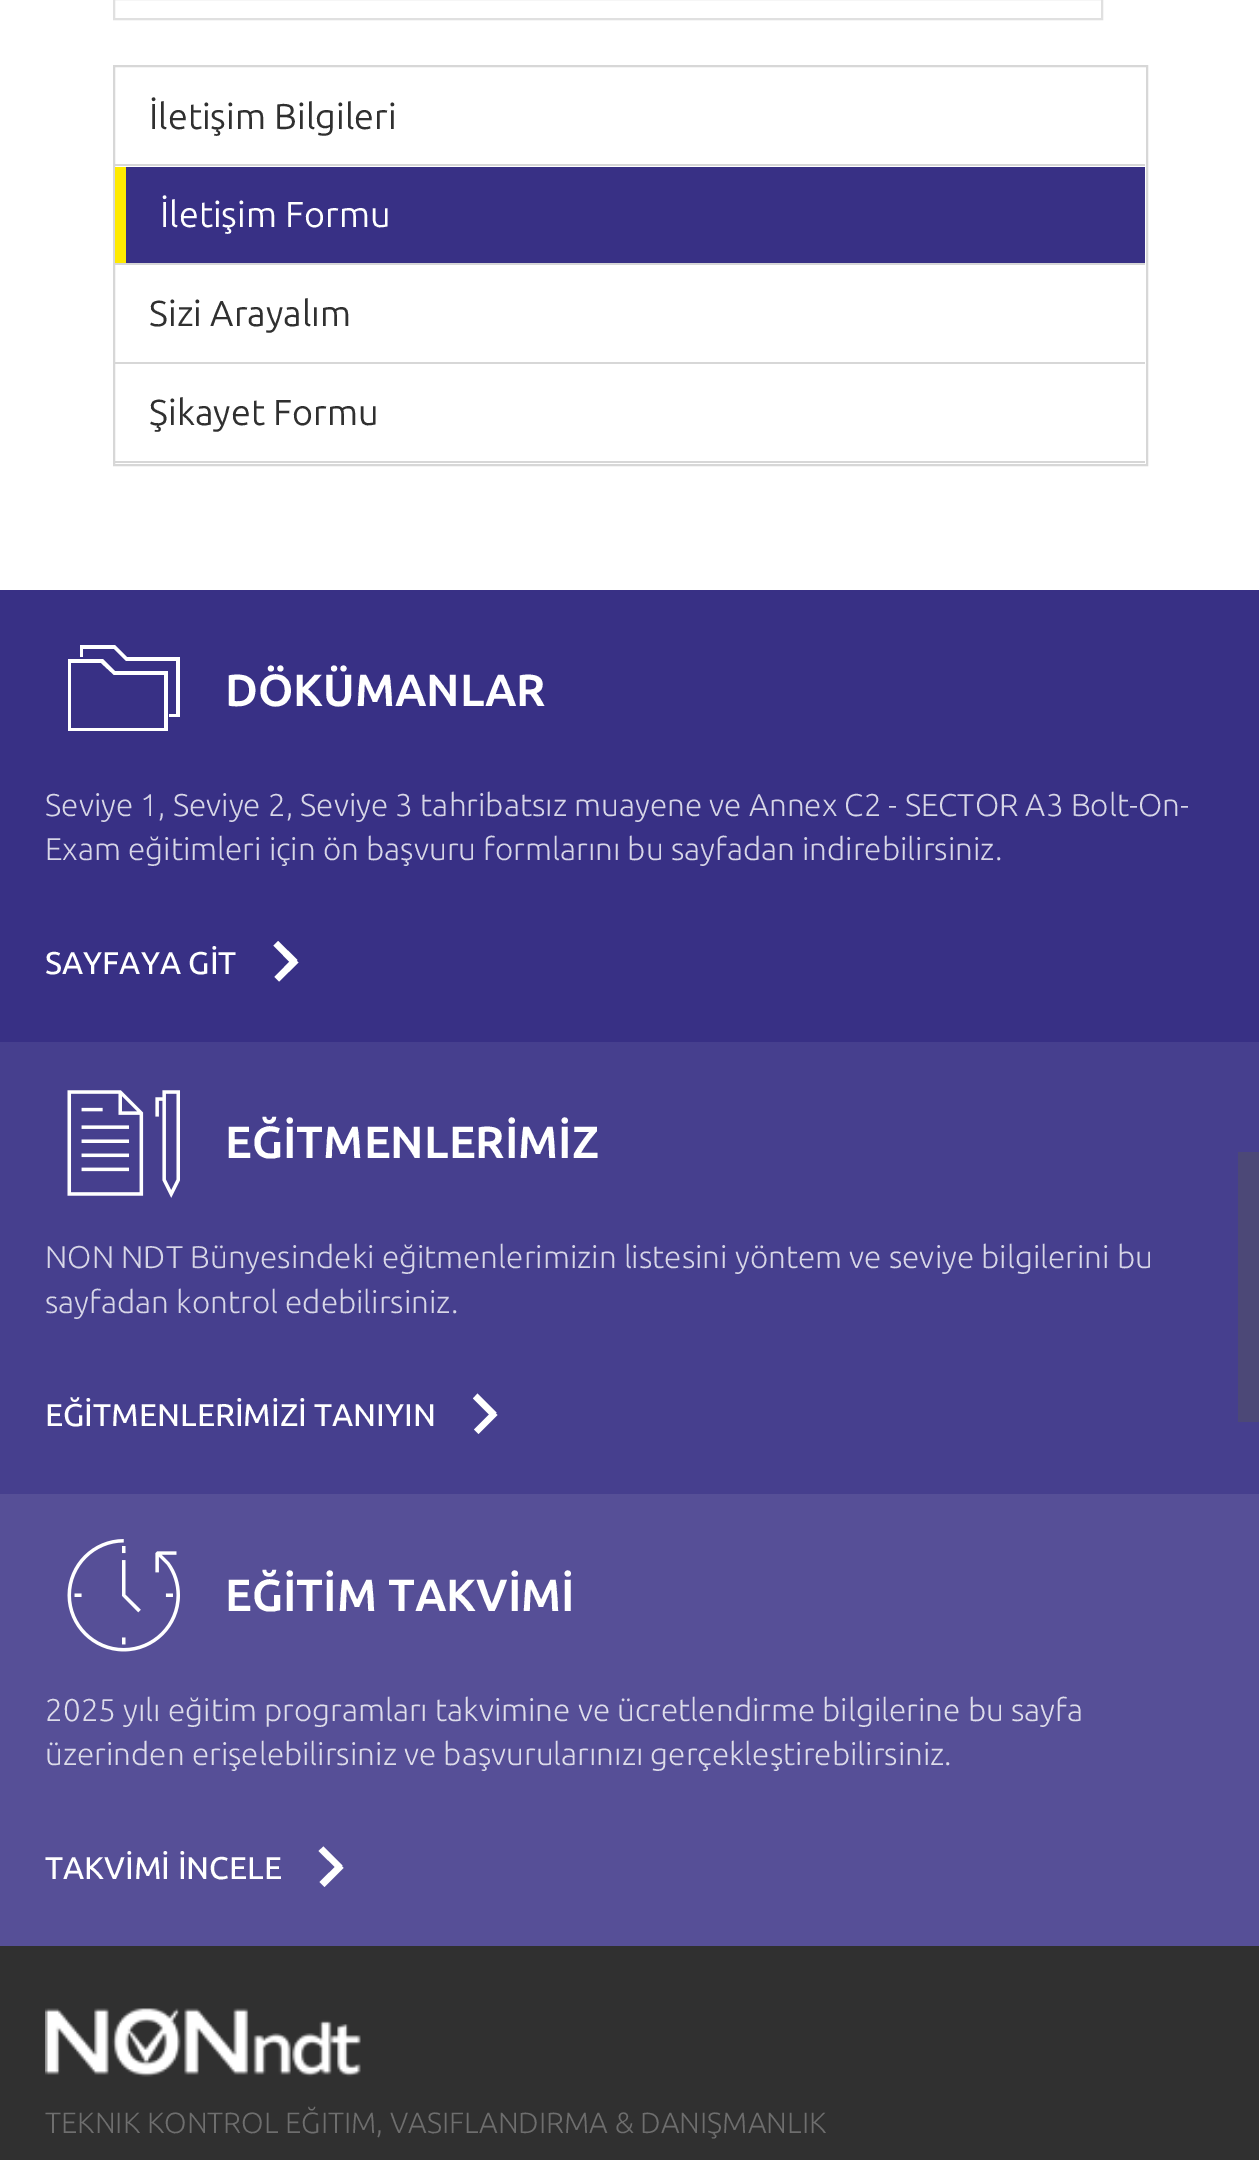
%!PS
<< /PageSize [1259 2160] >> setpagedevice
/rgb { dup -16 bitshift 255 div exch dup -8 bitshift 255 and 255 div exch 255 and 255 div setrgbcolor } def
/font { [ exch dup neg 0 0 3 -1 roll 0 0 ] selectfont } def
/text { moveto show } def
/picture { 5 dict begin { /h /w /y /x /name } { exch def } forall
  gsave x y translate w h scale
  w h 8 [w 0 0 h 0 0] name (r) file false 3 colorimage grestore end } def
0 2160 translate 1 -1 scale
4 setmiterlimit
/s1 { /Ubuntu-Regular 36 font 16#303030 rgb } def
/s2 { /Ubuntu-Regular 36 font 16#FFFFFF rgb } def
/s3 { /Ubuntu-Bold 45 font 16#FFFFFF rgb } def
/s4 { /Ubuntu-Light 31.5 font 16#D7D6E7 rgb } def
/s5 { /Ubuntu-Medium 31.5 font 16#FFFFFF rgb } def
/s6 { /Ubuntu-Light 31.5 font 16#DDDCEA rgb } def
/s7 { /Ubuntu-Light 29.25 font 16#6E6E6E rgb } def
16#FFFFFF rgb
0 0 1259 2160 rectfill
16#E0E0E0 rgb
2 setlinewidth
114 -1 988 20 rectstroke
16#D7D7D7 rgb
114 66 1033 399 rectstroke
115 164 1030 2 rectfill
s1
(İletişim Bilgileri) 149 129 text
16#D7D7D7 rgb
115 263 1030 2 rectfill
16#383085 rgb
126 167 1019 96 rectfill
16#FFEA00 rgb
115 167 11 96 rectfill
s2
(İletişim Formu) 160 227 text
16#D7D7D7 rgb
115 362 1030 2 rectfill
s1
(Sizi Arayalım) 149 326 text
16#D7D7D7 rgb
115 461 1030 2 rectfill
s1
(Şikayet Formu) 149 425 text
16#383085 rgb
0 590 1259 452 rectfill
16#FFFFFF rgb
168 671 moveto 168 731 lineto 68 731 lineto 68 659 lineto 103 659 lineto 115 671 lineto closepath 164 728 moveto 164 675 lineto 114 675 lineto 101 663 lineto 71 663 lineto 71 728 lineto closepath 115 645 moveto 127 657 lineto 180 657 lineto 180 717 lineto 169 717 lineto 169 714 lineto 176 714 lineto 176 661 lineto 126 661 lineto 114 649 lineto 83 649 lineto 83 657 lineto 80 657 lineto 80 645 lineto closepath fill
s3
(DÖKÜMANLAR) 225 706 text
s4
(Seviye 1, Seviye 2, Seviye 3 tahribatsız muayene ve Annex C2 - SECTOR A3 Bolt-On-) 45 816 text
(Exam eğitimleri için ön başvuru formlarını bu sayfadan indirebilirsiniz.) 45 860 text
s5
(SAYFAYA GİT) 45 974 text
297.5 960 moveto 292.5 965 lineto 273.5 945.5 lineto 278 941 lineto closepath fill
293.5 957.5 moveto 298.5 962.5 lineto 279 981.5 lineto 274.5 977 lineto closepath fill
16#463F8E rgb
0 1042 1259 452 rectfill
(pic1.raw) 67 1090 113 108 picture
s3
(EĞİTMENLERİMİZ) 225 1158 text
s4
(NON NDT Bünyesindeki eğitmenlerimizin listesini yöntem ve seviye bilgilerini bu) 45 1268 text
(sayfadan kontrol edebilirsiniz.) 45 1313 text
s5
(EĞİTMENLERİMİZİ TANIYIN) 45 1426 text
496.5 1412.5 moveto 492 1417.5 lineto 473 1398.5 lineto 477.5 1393.5 lineto closepath fill
493 1410.5 moveto 497.5 1415 lineto 478.5 1434 lineto 474 1429.5 lineto closepath fill
16#564F97 rgb
0 1494 1259 452 rectfill
(pic2.raw) 67 1539 113 113 picture
s3
(EĞİTİM TAKVİMİ) 225 1611 text
s6
(2025 yılı eğitim programları takvimine ve ücretlendirme bilgilerine bu sayfa) 45 1721 text
(üzerinden erişelebilirsiniz ve başvurularınızı gerçekleştirebilirsiniz.) 45 1765 text
s5
(TAKVİMİ İNCELE) 45 1879 text
342.5 1865.5 moveto 338 1870 lineto 318.5 1851 lineto 323.5 1846.5 lineto closepath fill
339 1863 moveto 343.5 1868 lineto 324.5 1887 lineto 319.5 1882 lineto closepath fill
16#303030 rgb
0 1946 1259 214 rectfill
(pic3.raw) 45 2008 316 69 picture
s7
(TEKNIK KONTROL EĞITIM, VASIFLANDIRMA & DANIŞMANLIK) 45 2133 text
16#4C4877 rgb
1238 1152 21 270 rectfill
showpage
